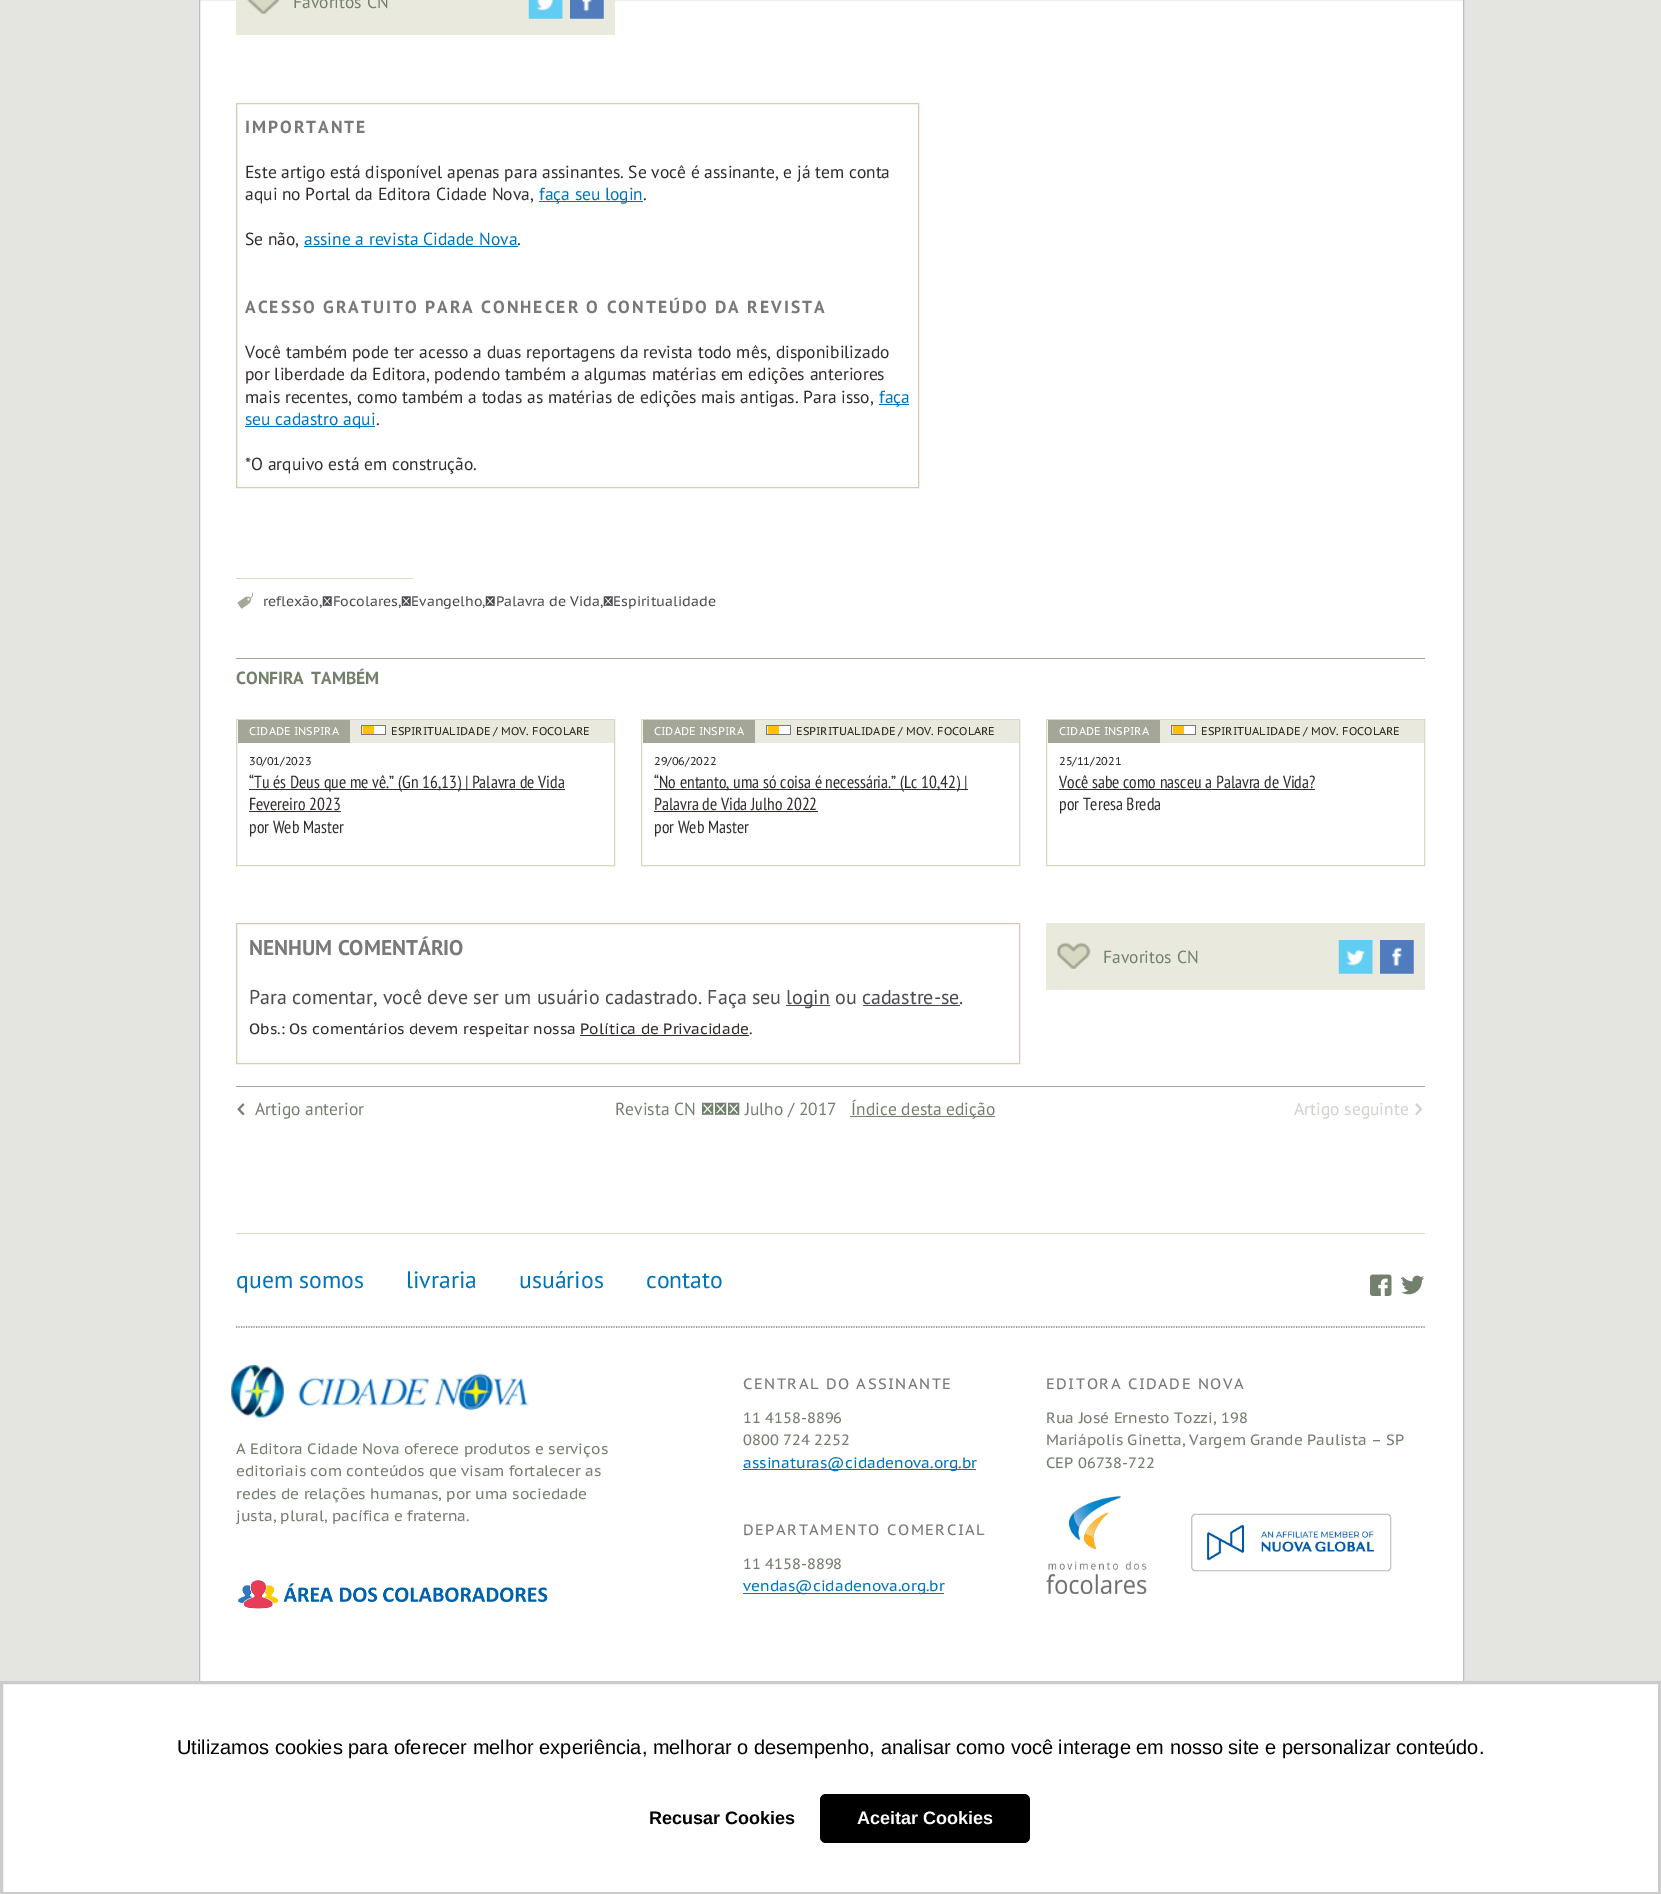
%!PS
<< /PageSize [1661 1894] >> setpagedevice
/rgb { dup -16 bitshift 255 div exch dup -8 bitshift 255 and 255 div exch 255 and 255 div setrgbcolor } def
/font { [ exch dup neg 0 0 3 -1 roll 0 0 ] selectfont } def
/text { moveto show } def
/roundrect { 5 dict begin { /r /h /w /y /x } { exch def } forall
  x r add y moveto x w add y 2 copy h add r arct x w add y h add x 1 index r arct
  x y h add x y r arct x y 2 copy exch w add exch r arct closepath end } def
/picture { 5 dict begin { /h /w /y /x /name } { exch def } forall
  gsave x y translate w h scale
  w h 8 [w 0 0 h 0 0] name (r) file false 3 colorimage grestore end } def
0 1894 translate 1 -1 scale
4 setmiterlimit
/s1 { /PTSans-Regular 17.5 font 16#73806D rgb } def
/s2 { /PTSans-Regular 17.5 font 16#332D2B rgb } def
/s3 { /PTSans-Regular 17.5 font 16#0074BA rgb } def
/s4 { /PTSansCaption-Regular 13.75 font 16#4D4B50 rgb } def
/s5 { /PTSans-Bold 17.5 font 16#73806D rgb } def
/s6 { /PTSansCaption-Regular 11.25 font 16#FFFFFF rgb } def
/s7 { /PTSansCaption-Regular 11.25 font 16#332D2B rgb } def
/s8 { /PTSansNarrow-Regular 17.5 font 16#332D2B rgb } def
/s9 { /PTSans-Bold 21.25 font 16#7A787C rgb } def
/s10 { /PTSans-Regular 20 font 16#4D4B50 rgb } def
/s11 { /PTSansCaption-Regular 15 font 16#332D2B rgb } def
/s12 { /PTSans-Regular 17.5 font 16#CED3CC rgb } def
/s13 { /PTSans-Regular 23.75 font 16#0074BA rgb } def
/s14 { /PTSansCaption-Regular 15 font 16#73806D rgb } def
/s15 { /PTSansCaption-Regular 15 font 16#0074BA rgb } def
/s16 { /LiberationSans-Regular 20 font 16#000000 rgb } def
/s17 { /LiberationSans-Bold 18 font 16#000000 rgb } def
/s18 { /LiberationSans-Bold 18 font 16#FFFFFF rgb } def
16#E4E4E0 rgb
0 0 1661 1894 rectfill
16#FFFFFF rgb
200 0 1263 1681 rectfill
16#B9C0B6 rgb
199.5 -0.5 1264 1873 rectstroke
16#EAE9DD rgb
236 0 379 35 rectfill
(pic1.raw) 247 0 33 14 picture
s1
(Favoritos CN) 293 8 text
(pic2.raw) 528 0 35 19 picture
(pic3.raw) 570 0 34 19 picture
16#DBC9B2 rgb
236.5 103.5 682 384 rectstroke
/PTSans-Bold 17.5 font
16#7A787C rgb
245 133 moveto 2 0 (IMPORTANTE) ashow
s2
(Este artigo está disponível apenas para assinantes. Se você é assinante, e já tem conta) 245 178 text
(aqui no Portal da Editora Cidade Nova,) 245 200 text
16#0074BA rgb
539 201 104 1 rectfill
(faça seu login) 539 200 text
s2
(.) 643 200 text
(Se não,) 245 245 text
s3
(assine a revista Cidade Nova) 304 245 text
304 246 214 1 rectfill
s2
(.) 517 245 text
/PTSans-Bold 17.5 font
16#7A787C rgb
245 313 moveto 2 0 (ACESSO GRATUITO PARA CONHECER O CONTEÚDO DA REVISTA) ashow
s2
(Você também pode ter acesso a duas reportagens da revista todo mês, disponibilizado) 245 358 text
(por liberdade da Editora, podendo também a algumas matérias em edições anteriores) 245 380 text
(mais recentes, como também a todas as matérias de edições mais antigas. Para isso,) 245 403 text
16#0074BA rgb
879 404 30 1 rectfill
(faça) 879 403 text
245 426 130 1 rectfill
(seu cadastro aqui) 245 425 text
s2
(.) 376 425 text
(*O arquivo está em construção.) 245 470 text
16#D9D8C3 rgb
236 578 177 1 rectfill
(pic4.raw) 237 592 17 17 picture
s4
(reflexão, Focolares, Evangelho, Palavra de Vida, Espiritualidade) 263 606 text
16#A4A698 rgb
236 658 1189 1 rectfill
s5
(CONFIRA) 236 684 text
(TAMBÉM) 311 684 text
16#D9D8C3 rgb
236.5 719.5 378 146 rectstroke
16#EAE9DD rgb
350 720 264 23 rectfill
16#A4A698 rgb
238 720 112 23 rectfill
s6
(CIDADE INSPIRA) 249 735 text
16#FFC200 rgb
363 726 11 8 rectfill
16#7A787C rgb
361 725 25 1 rectfill
361 734 13 1 rectfill
361 725 1 10 rectfill
16#FFFFFF rgb
374 726 11 8 rectfill
16#7A787C rgb
385 725 1 10 rectfill
374 734 12 1 rectfill
s7
(ESPIRITUALIDADE / MOV. FOCOLARE) 391 735 text
(30/01/2023) 249 765 text
249 789 316 1 rectfill
s8
(“Tu és Deus que me vê.” \(Gn 16,13\) | Palavra de Vida) 249 788 text
(Fevereiro 2023) 249 810 text
249 811 92 1 rectfill
(por Web Master) 249 833 text
16#D9D8C3 rgb
641.5 719.5 378 146 rectstroke
16#EAE9DD rgb
755 720 264 23 rectfill
16#A4A698 rgb
643 720 112 23 rectfill
s6
(CIDADE INSPIRA) 654 735 text
16#FFC200 rgb
768 726 11 8 rectfill
16#7A787C rgb
766 725 25 1 rectfill
766 734 13 1 rectfill
766 725 1 10 rectfill
16#FFFFFF rgb
779 726 11 8 rectfill
16#7A787C rgb
790 725 1 10 rectfill
779 734 12 1 rectfill
s7
(ESPIRITUALIDADE / MOV. FOCOLARE) 796 735 text
(29/06/2022) 654 765 text
654 789 314 1 rectfill
s8
(“No entanto, uma só coisa é necessária.” \(Lc 10,42\) |) 654 788 text
(Palavra de Vida Julho 2022) 654 810 text
654 811 164 1 rectfill
(por Web Master) 654 833 text
16#D9D8C3 rgb
1046.5 719.5 378 146 rectstroke
16#EAE9DD rgb
1160 720 264 23 rectfill
16#A4A698 rgb
1048 720 112 23 rectfill
s6
(CIDADE INSPIRA) 1059 735 text
16#FFC200 rgb
1173 726 11 8 rectfill
16#7A787C rgb
1171 725 25 1 rectfill
1171 734 13 1 rectfill
1171 725 1 10 rectfill
16#FFFFFF rgb
1184 726 11 8 rectfill
16#7A787C rgb
1195 725 1 10 rectfill
1184 734 12 1 rectfill
s7
(ESPIRITUALIDADE / MOV. FOCOLARE) 1201 735 text
(25/11/2021) 1059 765 text
s8
(Você sabe como nasceu a Palavra de Vida?) 1059 788 text
1059 789 256 1 rectfill
(por Teresa Breda) 1059 810 text
16#DBC9B2 rgb
236.5 923.5 783 140 rectstroke
s9
(NENHUM COMENTÁRIO) 249 955 text
s10
(Para comentar, você deve ser um usuário cadastrado. Faça seu) 249 1004 text
786 1005 44 1 rectfill
(login ou cadastre-se.) 786 1004 text
863 1005 97 1 rectfill
s11
(Obs.: Os comentários devem respeitar nossa Política de Privacidade.) 249 1034 text
580 1035 169 1 rectfill
16#EAE9DD rgb
1046 923 379 67 rectfill
(pic5.raw) 1057 942 34 27 picture
s1
(Favoritos CN) 1103 963 text
(pic6.raw) 1338 940 35 34 picture
(pic7.raw) 1380 940 34 34 picture
16#A4A698 rgb
236 1086 1189 1 rectfill
(pic8.raw) 237 1103 8 12 picture
s1
(Artigo anterior) 255 1115 text
(Revista CN   Julho / 2017) 615 1115 text
850 1116 145 1 rectfill
(Índice desta edição) 851 1115 text
s12
(Artigo seguinte) 1294 1115 text
(pic9.raw) 1415 1103 8 12 picture
16#D9D8C3 rgb
236 1233 1189 1 rectfill
s13
(quem somos) 236 1288 text
(livraria) 406 1288 text
(usuários) 519 1288 text
(contato) 646 1288 text
(pic10.raw) 1370 1274 22 22 picture
(pic11.raw) 1401 1275 23 20 picture
16#73806D rgb
1.2 setlinewidth
[1.25 1.25] 0 setdash
236 1327 moveto 1425 1327 lineto stroke
/PTSansCaption-Regular 15 font
16#7A787C rgb
743 1389 moveto 1.5 0 (CENTRAL DO ASSINANTE) ashow
s14
(11 4158-8896) 743 1423 text
(0800 724 2252) 743 1445 text
16#0074BA rgb
743 1469 233 1 rectfill
(assinaturas@cidadenova.org.br) 743 1468 text
16#7A787C rgb
743 1535 moveto 1.5 0 (DEPARTAMENTO COMERCIAL) ashow
s14
(11 4158-8898) 743 1569 text
16#0074BA rgb
743 1593 201 1 rectfill
(vendas@cidadenova.org.br) 743 1591 text
16#7A787C rgb
1046 1389 moveto 1.5 0 (EDITORA CIDADE NOVA) ashow
s14
(Rua José Ernesto Tozzi, 198) 1046 1423 text
(Mariápolis Ginetta, Vargem Grande Paulista – SP) 1046 1445 text
(CEP 06738-722) 1046 1468 text
(pic12.raw) 1046 1496 101 98 picture
(pic13.raw) 1191 1513 201 59 picture
(pic14.raw) 231 1365 298 53 picture
(A Editora Cidade Nova oferece produtos e serviços) 236 1454 text
(editoriais com conteúdos que visam fortalecer as) 236 1476 text
(redes de relações humanas, por uma sociedade) 236 1499 text
(justa, plural, pacífica e fraterna.) 236 1521 text
(pic15.raw) 238 1580 310 29 picture
16#FFFFFF rgb
1.5 1682.5 moveto 1659.5 1682.5 lineto 1659.5 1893.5 lineto 1.5 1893.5 lineto closepath gsave fill grestore
16#CCCCCC rgb
3 setlinewidth
[] 0 setdash
stroke
s16
(Utilizamos cookies para oferecer melhor experiência, melhorar o desempenho, analisar como você interage em nosso site e personalizar conteúdo.) 177 1754 text
s17
(Recusar Cookies) 649 1824 text
820 1794 210 49 6 roundrect fill
s18
(Aceitar Cookies) 857 1824 text
showpage
